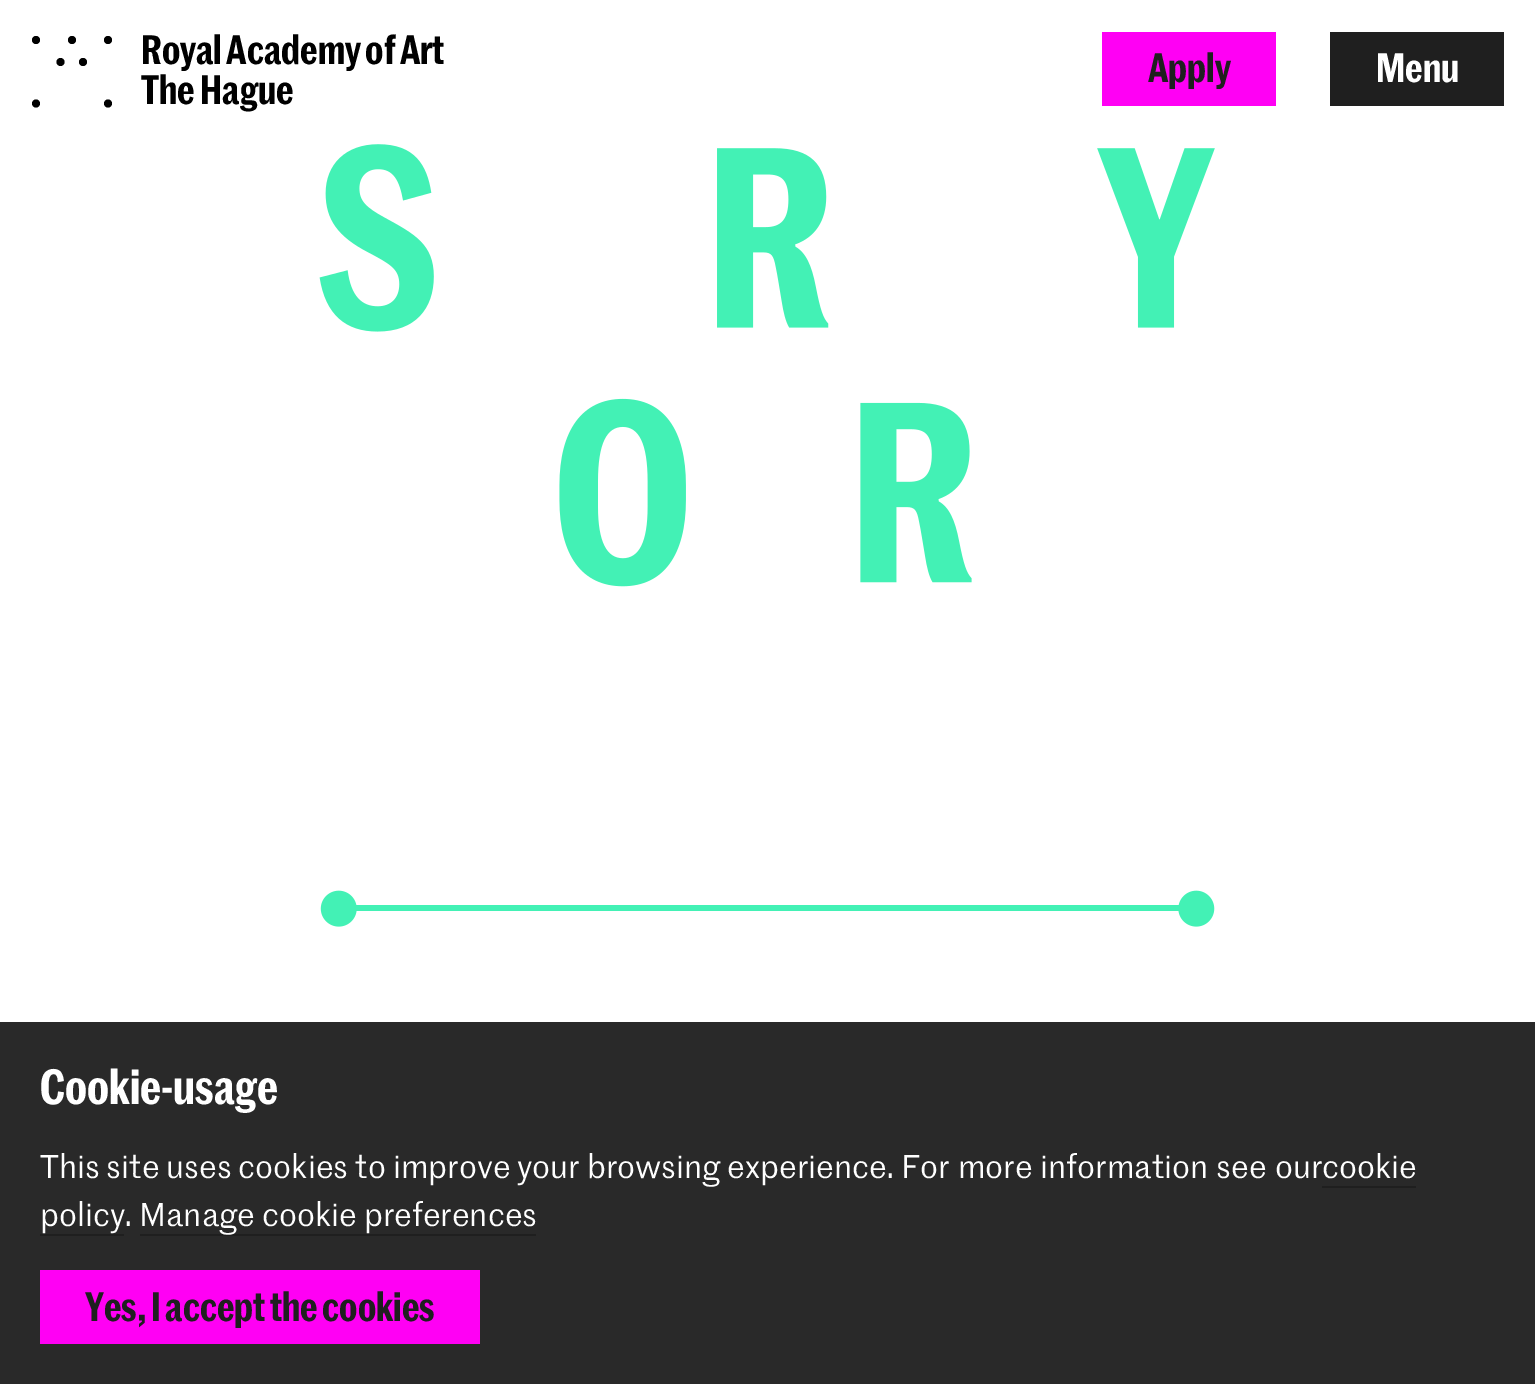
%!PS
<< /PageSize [1535 1384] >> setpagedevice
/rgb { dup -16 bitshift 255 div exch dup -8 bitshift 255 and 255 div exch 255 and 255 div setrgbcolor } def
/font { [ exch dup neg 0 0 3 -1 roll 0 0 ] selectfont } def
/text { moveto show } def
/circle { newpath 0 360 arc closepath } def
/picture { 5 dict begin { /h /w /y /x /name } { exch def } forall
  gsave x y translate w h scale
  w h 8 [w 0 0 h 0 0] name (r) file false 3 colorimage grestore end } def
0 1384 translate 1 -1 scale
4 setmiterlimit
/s1 { /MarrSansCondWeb-SemiBold 40 font 16#000000 rgb } def
/s2 { /MarrSansCondWeb-SemiBold 40 font 16#1F1F1F rgb } def
/s3 { /MarrSansCondWeb-SemiBold 40 font 16#FFFFFF rgb } def
/s4 { /MarrSansCondWeb-SemiBold 48 font 16#FFFFFF rgb } def
/s5 { /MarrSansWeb-Regular 32 font 16#FFFFFF rgb } def
16#FFFFFF rgb
0 0 1535 1384 rectfill
16#000000 rgb
36 40 4 circle fill
72 40 4 circle fill
108 40 4 circle fill
60.5 62 4 circle fill
83 62 4 circle fill
36 103.5 4 circle fill
108 103.5 4 circle fill
/MarrSansCondWeb-SemiBold 40 font
141 64 moveto -1 0 32 (Royal Academy of Art) widthshow
(The Hague) 141 104 text
16#FF00F4 rgb
1102 32 174 74 rectfill
s2
(Apply) 1148 82 text
1330 32 174 74 rectfill
s3
(Menu) 1376 82 text
(pic1.raw) 319 144 896 783 picture
16#292929 rgb
0 1022 1535 362 rectfill
s4
(Cookie-usage) 40 1104 text
/MarrSansWeb-Regular 32 font
40 1178 moveto -0.25 0 32 (This site uses cookies to improve your browsing experience.) widthshow
901 1178 moveto 1 0 32 (For more information see our) widthshow
(cookie) 1322 1178 text
16#1F1F1F rgb
1322 1186 94 2 rectfill
s5
(policy) 40 1226 text
(.) 124 1226 text
16#1F1F1F rgb
40 1234 84 2 rectfill
140 1234 396 2 rectfill
s5
(Manage cookie preferences) 139 1226 text
16#FF00F4 rgb
40 1270 440 74 rectfill
/MarrSansCondWeb-SemiBold 40 font
16#1F1F1F rgb
85 1321 moveto -1 0 32 (Yes, I accept the cookies) widthshow
showpage
